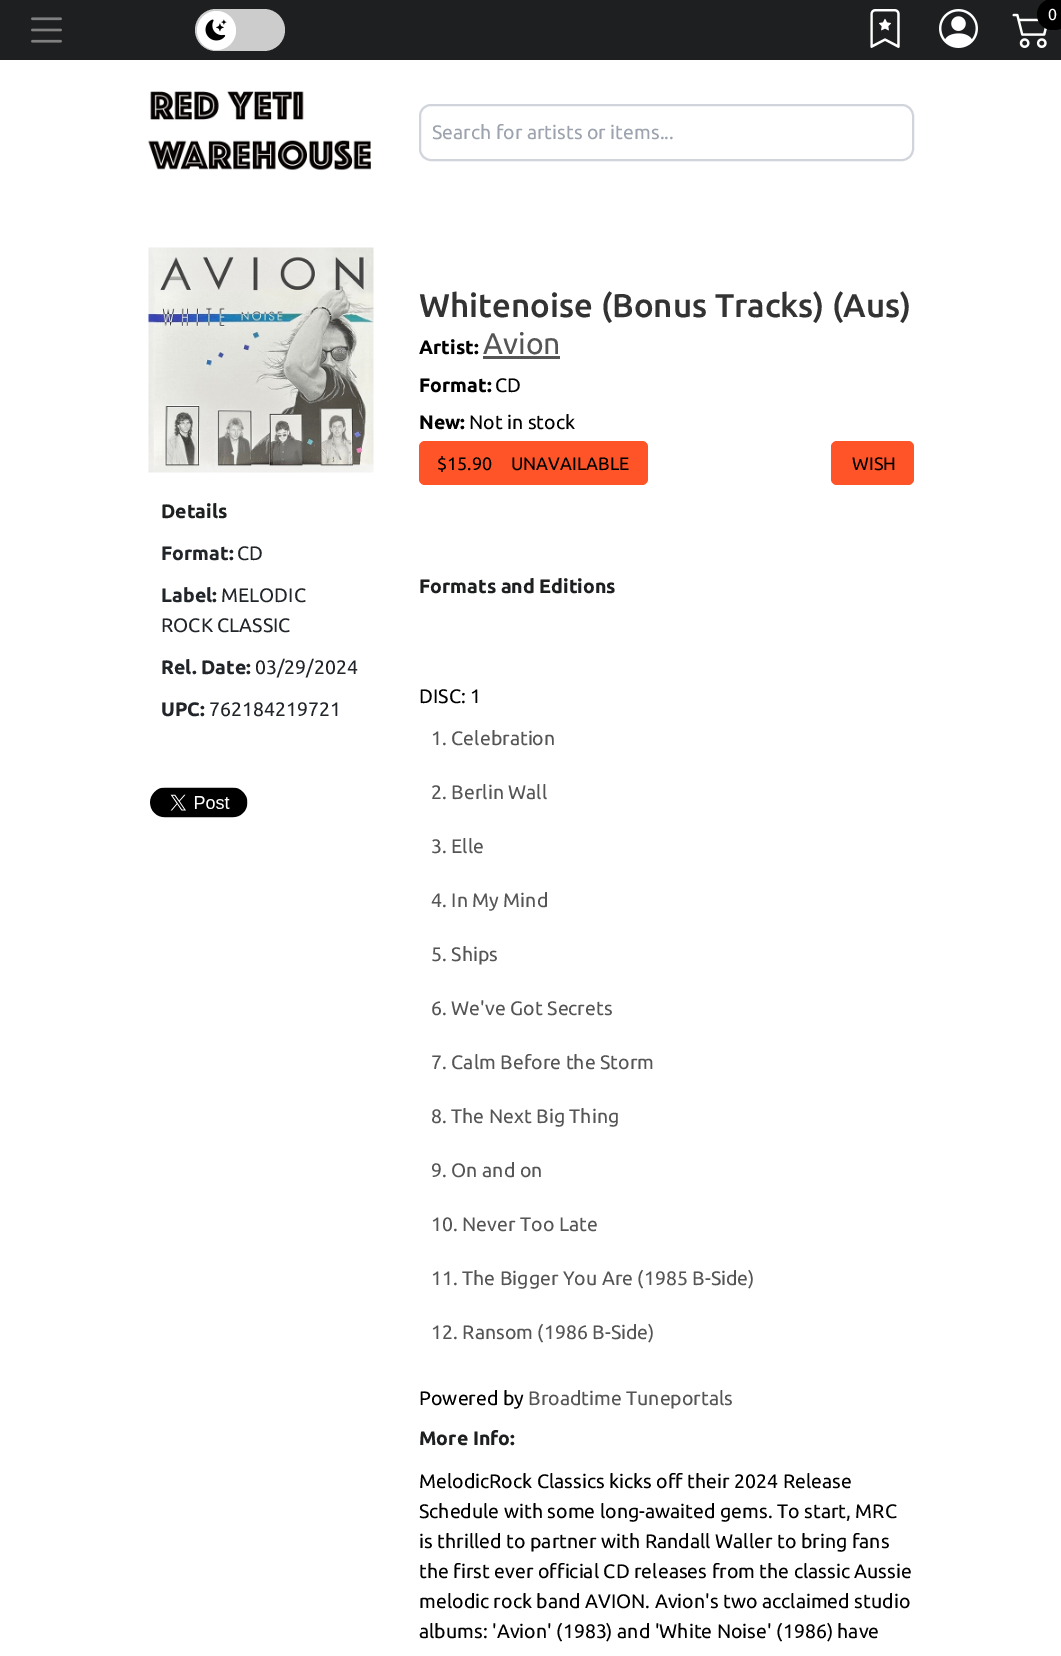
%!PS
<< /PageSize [1061 1656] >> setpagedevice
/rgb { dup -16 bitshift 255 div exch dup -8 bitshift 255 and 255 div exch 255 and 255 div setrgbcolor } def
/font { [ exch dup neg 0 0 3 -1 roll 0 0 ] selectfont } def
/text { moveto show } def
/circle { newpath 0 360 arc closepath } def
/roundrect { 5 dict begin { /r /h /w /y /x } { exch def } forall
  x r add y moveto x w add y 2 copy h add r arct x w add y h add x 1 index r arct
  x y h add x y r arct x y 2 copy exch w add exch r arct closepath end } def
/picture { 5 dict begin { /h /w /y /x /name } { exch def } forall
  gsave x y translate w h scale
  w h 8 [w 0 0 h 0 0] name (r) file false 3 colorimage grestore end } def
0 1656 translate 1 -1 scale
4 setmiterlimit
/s1 { /Ubuntu-Regular 16 font 16#FFFFFF rgb } def
/s2 { /Ubuntu-Regular 19.5 font 16#9CA3AF rgb } def
/s3 { /Ubuntu-Bold 19.5 font 16#1D1F20 rgb } def
/s4 { /Ubuntu-Bold 19.5 font 16#212529 rgb } def
/s5 { /Ubuntu-Regular 19.5 font 16#212529 rgb } def
/s6 { /Ubuntu-Medium 33 font 16#333333 rgb } def
/s7 { /Ubuntu-Bold 19.5 font 16#000000 rgb } def
/s8 { /Ubuntu-Regular 30 font 16#555555 rgb } def
/s9 { /Ubuntu-Regular 19.5 font 16#000000 rgb } def
/s10 { /Ubuntu-Regular 18 font 16#000000 rgb } def
/s11 { /Ubuntu-Regular 19.5 font 16#555555 rgb } def
16#FFFFFF rgb
0 0 1061 1656 rectfill
16#1D1F20 rgb
0 0 1061 60 rectfill
(pic1.raw) 31 17 31 26 picture
16#CCCCCC rgb
195 9 90 42 21 roundrect fill
16#FFFFFF rgb
216.5 30.5 19.5 circle fill
(pic2.raw) 205 19 22 22 picture
(pic3.raw) 870 9 30 39 picture
(pic4.raw) 939 9 39 39 picture
(pic5.raw) 1012 13 35 35 picture
16#000000 rgb
1037 -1 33 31 15.5 roundrect fill
s1
(0) 1048 20 text
(pic6.raw) 148 91 223 80 picture
16#D1D5DB rgb
2 setlinewidth
420 105 493 55 11 roundrect stroke
s2
(Search for artists or items...) 432 139 text
(pic7.raw) 148 247 226 226 picture
s3
(Details) 161 518 text
s4
(Format:) 161 560 text
s5
(CD) 237 560 text
s4
(Label:) 161 602 text
s5
(MELODIC) 221 602 text
(ROCK CLASSIC) 161 632 text
s4
(Rel. Date:) 161 674 text
s5
(03/29/2024) 255 674 text
s4
(UPC:) 161 716 text
s5
(762184219721) 209 716 text
(pic8.raw) 150 787 98 31 picture
s6
(Whitenoise \(Bonus Tracks\) \(Aus\)) 419 317 text
s7
(Artist:) 419 354 text
16#555555 rgb
483 356 77 3 rectfill
s8
(Avion) 483 354 text
s7
(Format:) 419 392 text
s9
(CD) 495 392 text
s7
(New:) 419 429 text
s9
(Not in stock) 469 429 text
16#FF5328 rgb
419 441 229 44 6 roundrect fill
s10
($15.90) 437 470 text
(UNAVAILABLE) 511 470 text
16#FF5328 rgb
831 441 83 44 6 roundrect fill
s10
(WISH) 852 470 text
s3
(Formats and Editions) 419 593 text
s9
(DISC: 1) 419 703 text
s11
(1. Celebration) 431 745 text
(2. Berlin Wall) 431 799 text
(3. Elle) 431 853 text
(4. In My Mind) 431 907 text
(5. Ships) 431 961 text
(6. We've Got Secrets) 431 1015 text
(7. Calm Before the Storm) 431 1069 text
(8. The Next Big Thing) 431 1123 text
(9. On and on) 431 1177 text
(10. Never Too Late) 431 1231 text
(11. The Bigger You Are \(1985 B-Side\)) 431 1285 text
(12. Ransom \(1986 B-Side\)) 431 1339 text
s9
(Powered by) 419 1405 text
s11
(Broadtime Tuneportals) 528 1405 text
s3
(More Info:) 419 1445 text
s9
(MelodicRock Classics kicks off their 2024 Release) 419 1488 text
(Schedule with some long-awaited gems. To start, MRC) 419 1518 text
(is thrilled to partner with Randall Waller to bring fans) 419 1548 text
(the first ever official CD releases from the classic Aussie) 419 1578 text
(melodic rock band AVION. Avion's two acclaimed studio) 419 1608 text
(albums: 'Avion' \(1983\) and 'White Noise' \(1986\) have) 419 1638 text
showpage
